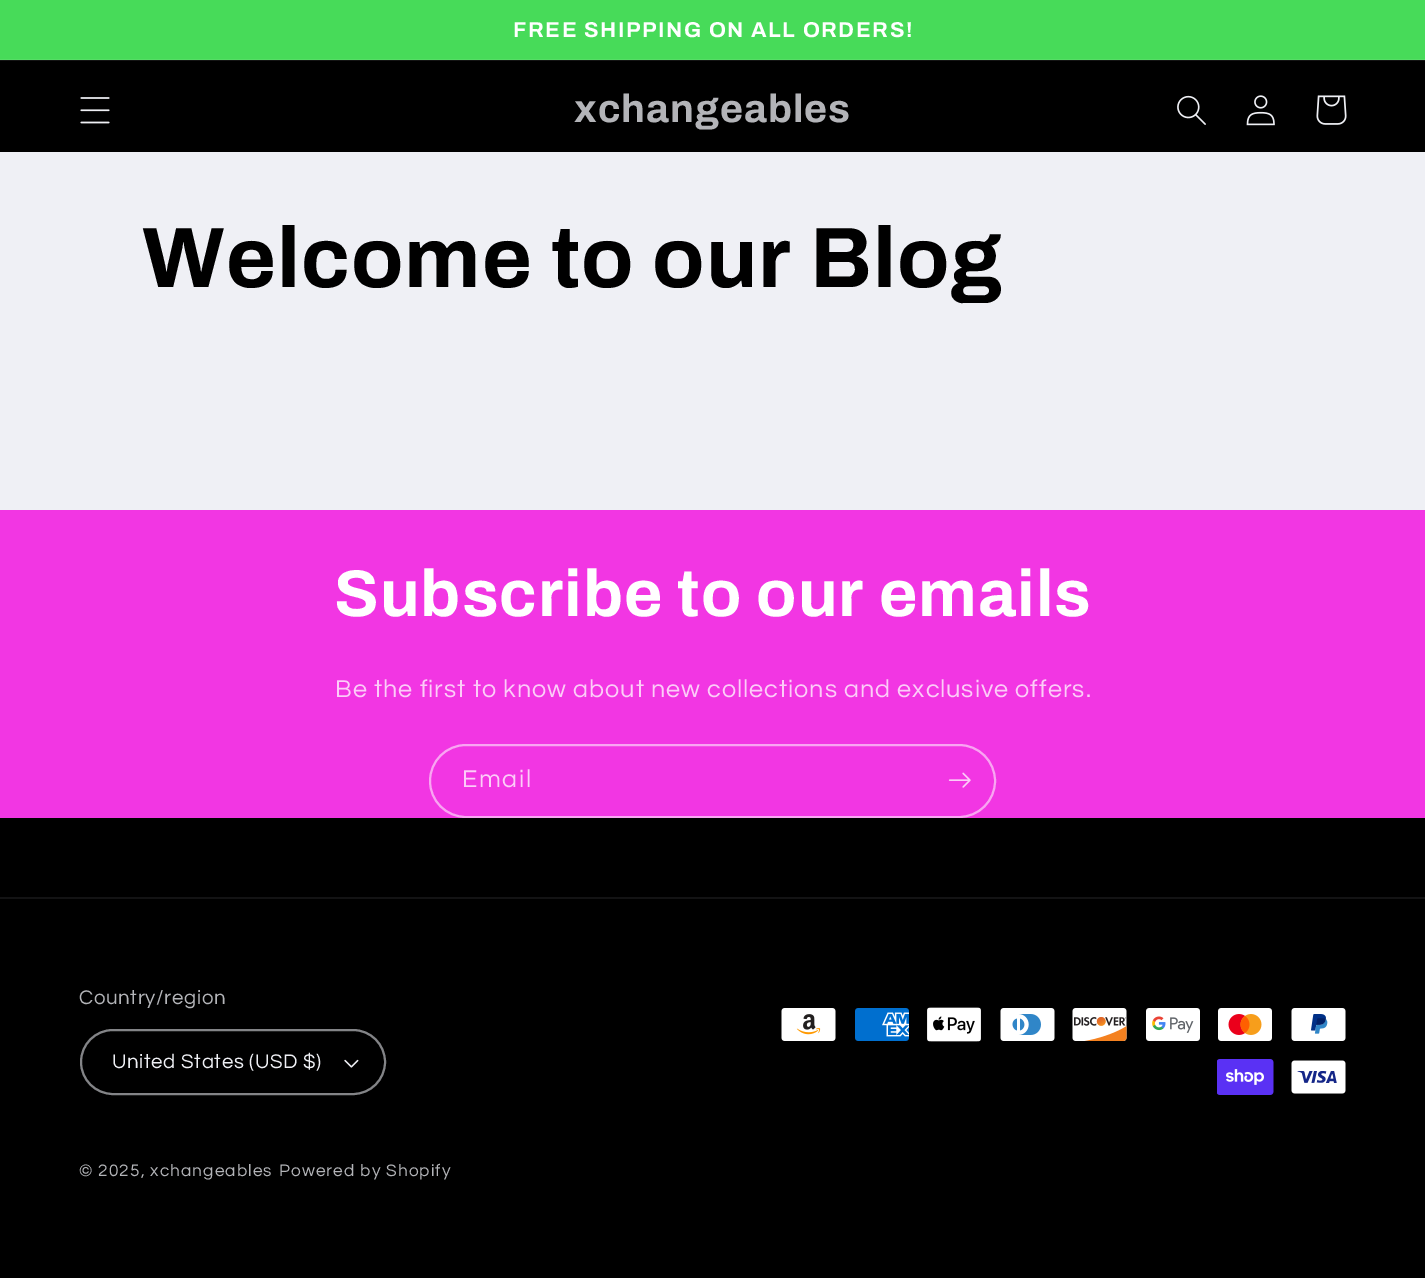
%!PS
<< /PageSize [1425 1278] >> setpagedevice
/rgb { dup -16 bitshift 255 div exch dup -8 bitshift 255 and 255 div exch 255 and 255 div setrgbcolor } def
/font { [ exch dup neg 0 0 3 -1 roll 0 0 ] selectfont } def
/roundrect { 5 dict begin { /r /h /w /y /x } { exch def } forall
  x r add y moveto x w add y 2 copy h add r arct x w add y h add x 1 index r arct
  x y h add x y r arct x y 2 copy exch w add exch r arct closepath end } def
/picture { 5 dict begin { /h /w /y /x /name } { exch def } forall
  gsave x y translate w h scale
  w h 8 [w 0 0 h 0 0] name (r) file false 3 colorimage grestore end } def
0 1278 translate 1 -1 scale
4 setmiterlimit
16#EFF0F5 rgb
0 0 1425 1278 rectfill
16#47DB59 rgb
0 0 1425 59 rectfill
16#56DE66 rgb
0 59 1425 1 rectfill
/Archivo-Bold 21.5 font
16#FFFFFF rgb
513 37 moveto 1.6 0 (FREE SHIPPING ON ALL ORDERS!) ashow
16#000000 rgb
0 61 1425 91 rectfill
16#141414 rgb
0 60 1425 1 rectfill
(pic1.raw) 80 97 30 27 picture
/Archivo-Bold 39.5 font
16#B3B4B8 rgb
574 122 moveto 1 0 (xchangeables) ashow
(pic2.raw) 1177 95 29 30 picture
(pic3.raw) 1246 95 29 31 picture
(pic4.raw) 1316 95 31 30 picture
/Archivo-Bold 85.75 font
16#000000 rgb
142 287 moveto 1 0 (Welcome to our Blog) ashow
16#F236E3 rgb
0 510 1425 308 rectfill
/Archivo-Bold 66 font
16#FFFFFF rgb
334 616 moveto 1 0 (Subscribe to our emails) ashow
/Questrial-Regular 25.2 font
16#FCCDF8 rgb
335 697 moveto 0.95 0 (Be the first to know about new collections and exclusive offers.) ashow
16#F9A5F2 rgb
2 setlinewidth
430 745 565 72 36 roundrect stroke
16#FCCDF8 rgb
462 787 moveto 1.6 0 (Email) ashow
(pic5.raw) 948 772 23 16 picture
16#000000 rgb
0 818 1425 460 rectfill
16#131314 rgb
0 897 1425 2 rectfill
/Questrial-Regular 20.5 font
16#B3B4B8 rgb
79 1004 moveto 0.6 0 (Country/region) ashow
(pic6.raw) 344 1059 15 9 picture
16#838487 rgb
81 1030 304 64 32 roundrect stroke
16#EFF0F5 rgb
112 1068 moveto 0.6 0 (United States \(USD $\)) ashow
(pic7.raw) 781 1008 55 33 picture
(pic8.raw) 855 1008 54 33 picture
(pic9.raw) 927 1007 54 35 picture
(pic10.raw) 1000 1008 55 33 picture
(pic11.raw) 1072 1008 55 33 picture
(pic12.raw) 1146 1008 54 33 picture
(pic13.raw) 1218 1008 54 33 picture
(pic14.raw) 1291 1008 55 33 picture
(pic15.raw) 1217 1059 57 36 picture
(pic16.raw) 1291 1060 55 34 picture
/Questrial-Regular 17.25 font
16#B3B4B8 rgb
79 1176 moveto 1.1 0 (© 2025, xchangeables) ashow
279 1176 moveto 1.1 0 (Powered by Shopify) ashow
showpage
